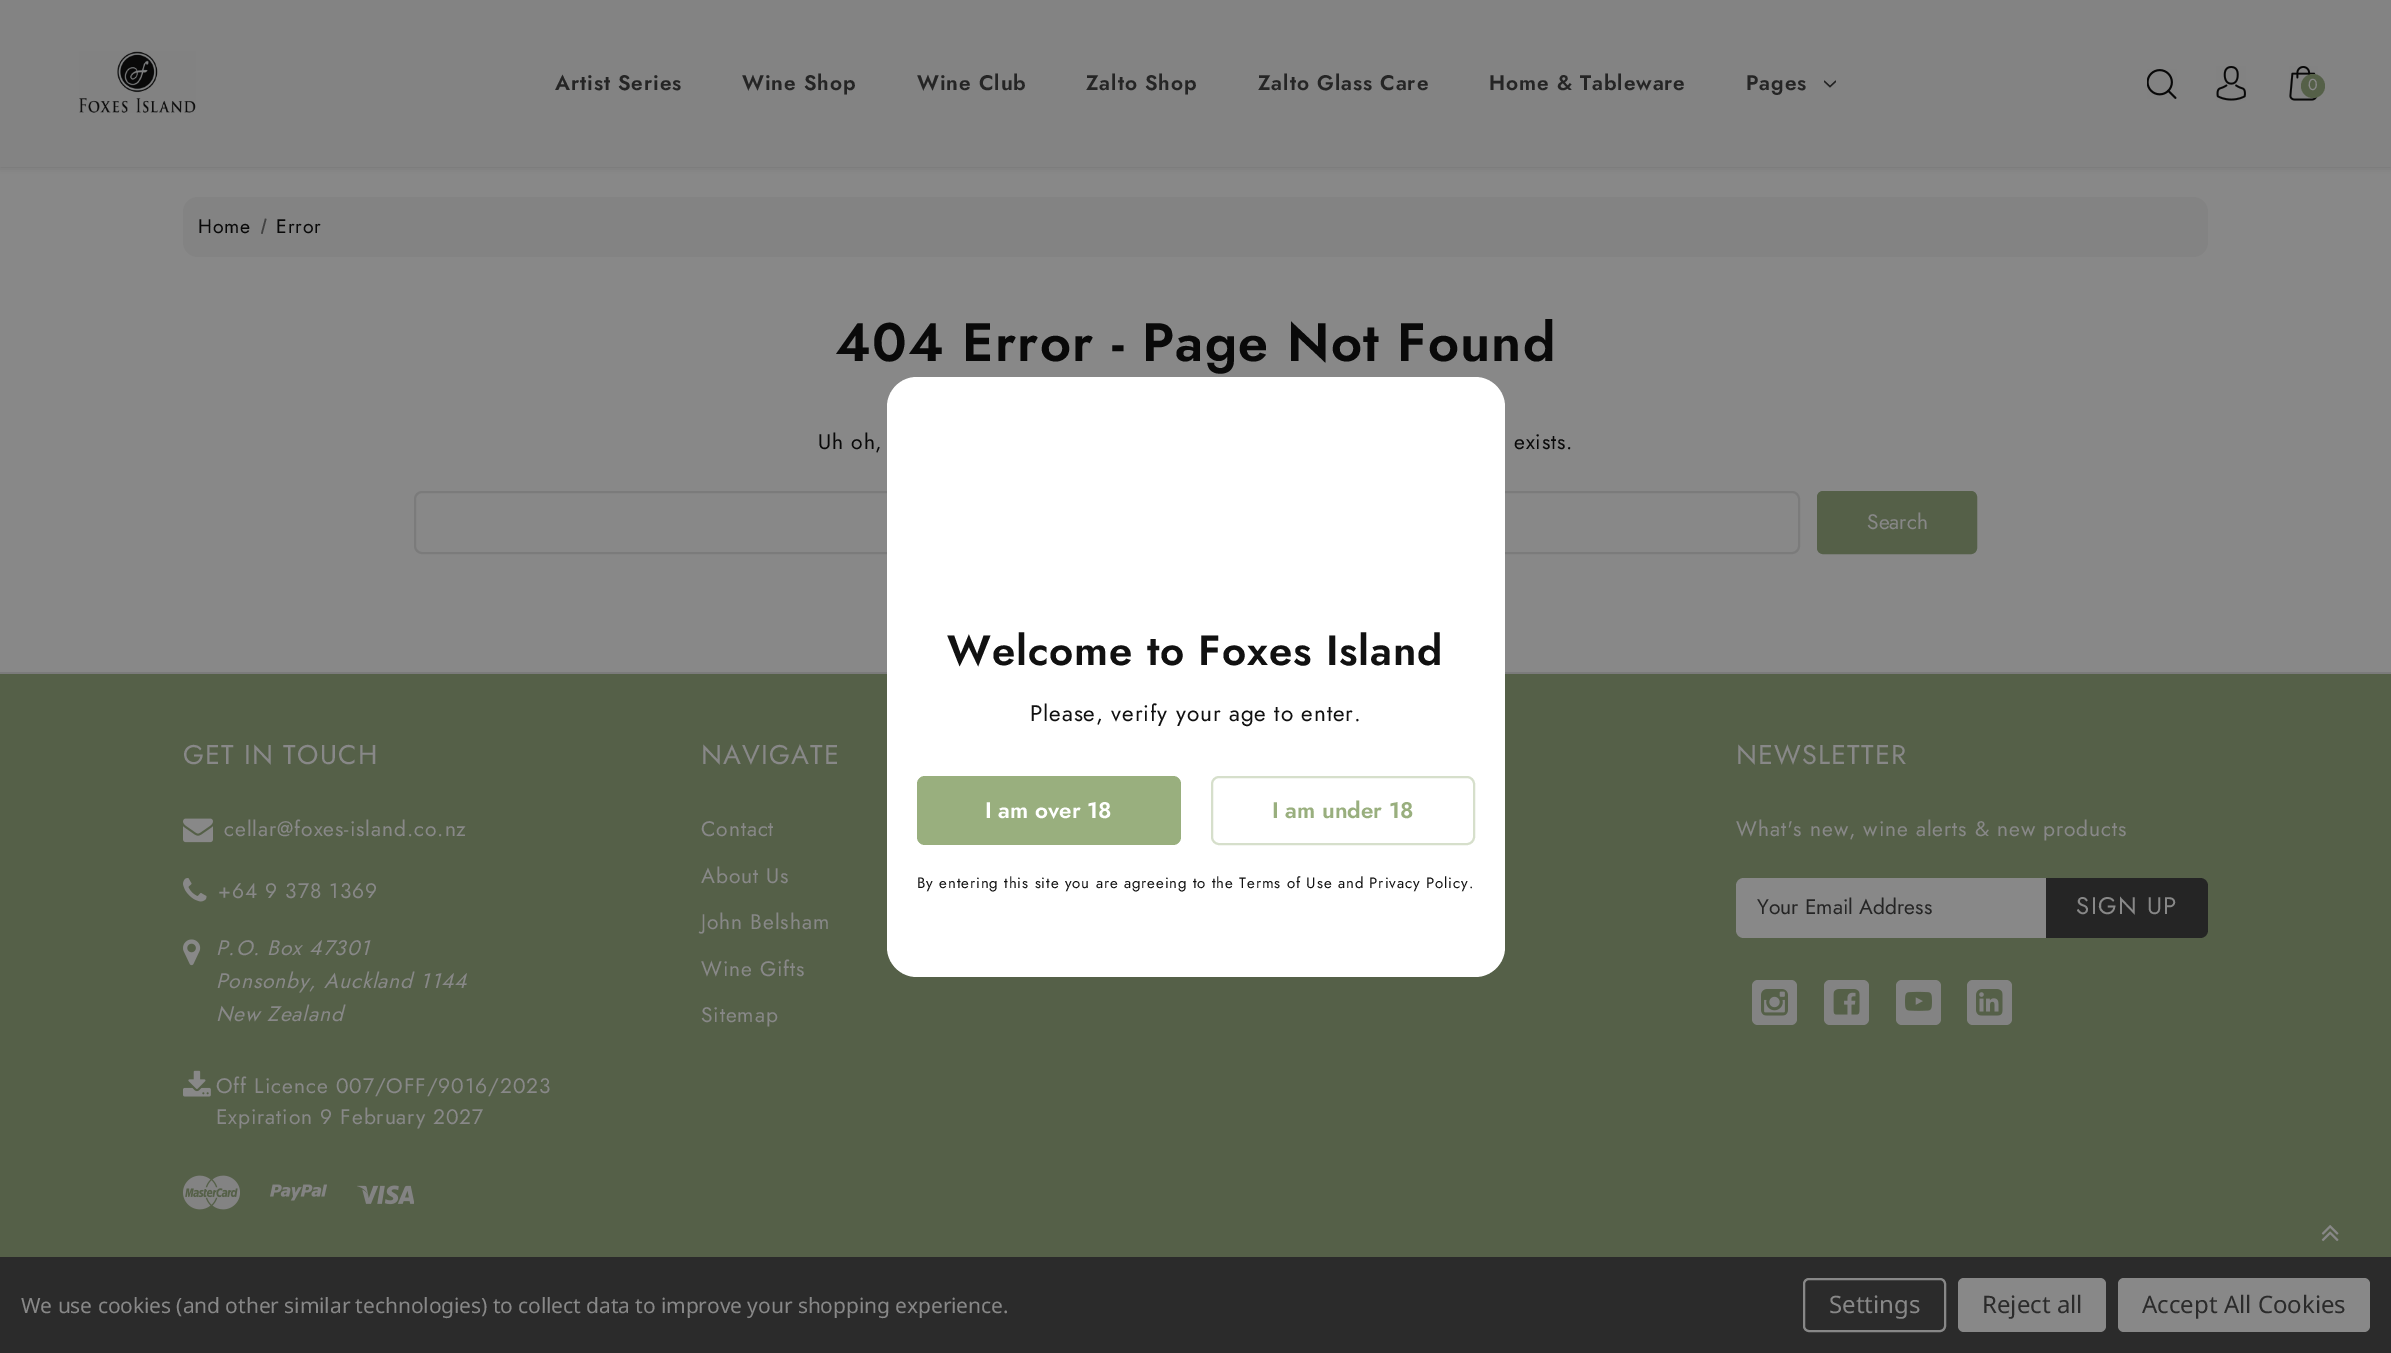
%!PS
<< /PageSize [2391 1353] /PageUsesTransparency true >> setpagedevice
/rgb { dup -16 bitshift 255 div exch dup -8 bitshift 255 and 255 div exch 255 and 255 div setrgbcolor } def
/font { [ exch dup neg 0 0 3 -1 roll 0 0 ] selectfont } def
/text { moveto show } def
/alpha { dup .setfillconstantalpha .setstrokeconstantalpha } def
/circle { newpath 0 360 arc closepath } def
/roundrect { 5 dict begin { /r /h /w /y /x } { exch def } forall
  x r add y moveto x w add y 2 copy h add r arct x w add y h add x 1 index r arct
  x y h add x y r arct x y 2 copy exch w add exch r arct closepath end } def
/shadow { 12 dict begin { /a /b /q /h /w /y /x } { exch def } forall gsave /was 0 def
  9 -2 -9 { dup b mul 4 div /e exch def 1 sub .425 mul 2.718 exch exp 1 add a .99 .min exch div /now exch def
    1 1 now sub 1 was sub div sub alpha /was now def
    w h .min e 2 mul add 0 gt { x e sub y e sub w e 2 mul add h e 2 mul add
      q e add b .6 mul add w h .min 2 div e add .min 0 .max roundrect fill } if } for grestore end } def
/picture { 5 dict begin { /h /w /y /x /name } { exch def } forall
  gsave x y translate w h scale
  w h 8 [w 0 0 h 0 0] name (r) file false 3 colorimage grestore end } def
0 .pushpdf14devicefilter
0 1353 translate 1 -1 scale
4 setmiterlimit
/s1 { /Jost-Regular 16 font 16#888888 rgb } def
/s2 { /Jost-Regular 21 font 16#888888 rgb } def
/s3 { /Jost-SemiBold 22.5 font 16#FFFFFF rgb } def
/s4 { /Jost-SemiBold 22.5 font 16#99AF7E rgb } def
/s5 { /Jost-Regular 21 font 16#252525 rgb } def
/s6 { /NotoSans-Regular 24 font 16#888888 rgb } def
/s7 { /NotoSans-Regular 24 font 16#2B2B2B rgb } def
16#888888 rgb
0 0 2391 1353 rectfill
16#090909 rgb
0 0 2391 167 0 4 0.18 shadow
16#838383 rgb
0 0 2391 167 rectfill
(pic1.raw) 79 51 117 62 picture
/Jost-SemiBold 21 font
16#252525 rgb
555 90 moveto 0.9 0 (Artist Series) ashow
742 90 moveto 0.9 0 (Wine Shop) ashow
917 90 moveto 0.9 0 (Wine Club) ashow
1086 90 moveto 0.9 0 (Zalto Shop) ashow
1258 90 moveto 0.9 0 (Zalto Glass Care) ashow
1489 90 moveto 0.9 0 (Home & Tableware) ashow
1746 90 moveto 0.9 0 (Pages) ashow
(pic2.raw) 1824 80 12 8 picture
(pic3.raw) 2147 69 30 30 picture
(pic4.raw) 2216 66 30 35 picture
(pic5.raw) 2289 66 29 35 picture
16#556048 rgb
2313 86 12 circle fill
s1
(0) 2308 90 text
16#838383 rgb
183 197 2025 60 15 roundrect fill
/Jost-Regular 19.5 font
16#090909 rgb
198 233 moveto 0.9 0 (Home) ashow
16#434343 rgb
265 218.5 moveto 266.5 219 lineto 262.5 234 lineto 261 233.5 lineto closepath fill
16#090909 rgb
276 233 moveto 0.9 0 (Error) ashow
/Jost-SemiBold 54 font
835 361 moveto 1.2 0 (404 Error - Page Not Found) ashow
/Jost-Regular 21 font
818 449 moveto 0.9 0 (Uh oh,) ashow
1514 449 moveto 0.9 0 (exists.) ashow
16#7B7B7B rgb
2 setlinewidth
415 492 1384 61 7 roundrect stroke
16#556048 rgb
1818 492 158 61 5 roundrect gsave fill grestore
stroke
s2
(Search) 1867 529 text
16#556048 rgb
0 674 2391 583 rectfill
16#7B7B7B rgb
0 672 2391 2 rectfill
16#FFFFFF rgb
887 377 618 600 30 roundrect fill
/Jost-SemiBold 42 font
16#111111 rgb
947 665 moveto 0.9 0 (Welcome to Foxes Island) ashow
/Jost-Regular 22.5 font
1030 721 moveto 0.9 0 (Please, verify your age to enter.) ashow
16#99AF7E rgb
917 776 264 69 8 roundrect fill
s3
(I am over 18) 985 818 text
16#D6DFCB rgb
1212 777 262 67 7 roundrect stroke
s4
(I am under 18) 1272 818 text
/Jost-Regular 15 font
16#111111 rgb
917 888 moveto 0.9 0 (By entering this site you are agreeing to the Terms of Use and Privacy Policy.) ashow
/Jost-Regular 27 font
16#888888 rgb
183 764 moveto 1.2 0 (GET IN TOUCH) ashow
(pic6.raw) 183 818 30 25 picture
/Jost-Regular 21 font
224 836 moveto 0.9 0 (cellar@foxes-island.co.nz) ashow
(pic7.raw) 183 878 24 24 picture
218 898 moveto 0.9 0 (+64 9 378 1369) ashow
(pic8.raw) 183 939 18 27 picture
/Jost-Italic 21 font
216 955 moveto 0.9 0 (P.O. Box 47301) ashow
216 988 moveto 0.9 0 (Ponsonby, Auckland 1144) ashow
216 1021 moveto 0.9 0 (New Zealand) ashow
(pic9.raw) 183 1070 28 27 picture
/Jost-Regular 21 font
216 1093 moveto 0.9 0 (Off Licence 007/OFF/9016/2023) ashow
216 1124 moveto 0.9 0 (Expiration 9 February 2027) ashow
(pic10.raw) 183 1175 57 35 picture
(pic11.raw) 270 1184 57 17 picture
(pic12.raw) 357 1185 57 20 picture
/Jost-Regular 27 font
701 764 moveto 1.2 0 (NAVIGATE) ashow
/Jost-Regular 21 font
701 836 moveto 0.9 0 (Contact) ashow
701 883 moveto 0.9 0 (About Us) ashow
701 929 moveto 0.9 0 (John Belsham) ashow
701 976 moveto 0.9 0 (Wine Gifts) ashow
701 1022 moveto 0.9 0 (Sitemap) ashow
/Jost-Regular 27 font
1736 764 moveto 1.2 0 (NEWSLETTER) ashow
/Jost-Regular 21 font
1736 836 moveto 0.9 0 (What's new, wine alerts & new products) ashow
1744 878 moveto 2046 878 lineto 2046 938 lineto 1744 938 lineto 1739.5 938 1736 934.5 1736 930 curveto 1736 886 lineto 1736 881.5 1739.5 878 1744 878 curveto closepath fill
s5
(Your Email Address) 1757 914 text
2046 878 moveto 2200 878 lineto 2204.5 878 2208 881.5 2208 886 curveto 2208 930 lineto 2208 934.5 2204.5 938 2200 938 curveto 2046 938 lineto closepath fill
/Jost-Regular 24 font
16#888888 rgb
2076 914 moveto 1.5 0 (SIGN UP) ashow
16#838383 rgb
1752 980 45 45 6 roundrect fill
(pic13.raw) 1761 989 27 27 picture
1824 980 45 45 6 roundrect fill
(pic14.raw) 1833 989 27 26 picture
1896 980 45 45 6 roundrect fill
(pic15.raw) 1905 991 27 20 picture
1967 980 45 45 6 roundrect fill
(pic16.raw) 1976 989 27 27 picture
(pic17.raw) 2321 1225 18 17 picture
16#2B2B2B rgb
0 1257 2391 96 rectfill
/NotoSans-Regular 21 font
16#888888 rgb
21 1313 moveto -0.08 0 (We use cookies \(and other similar technologies\) to collect data to improve your shopping experience.) ashow
1804 1279 141 52 5 roundrect stroke
s6
(Settings) 1829 1313 text
1958 1278 148 54 6 roundrect fill
s7
(Reject all) 1982 1313 text
16#888888 rgb
2118 1278 252 54 6 roundrect fill
s7
(Accept All Cookies) 2142 1313 text
.poppdf14devicefilter showpage
